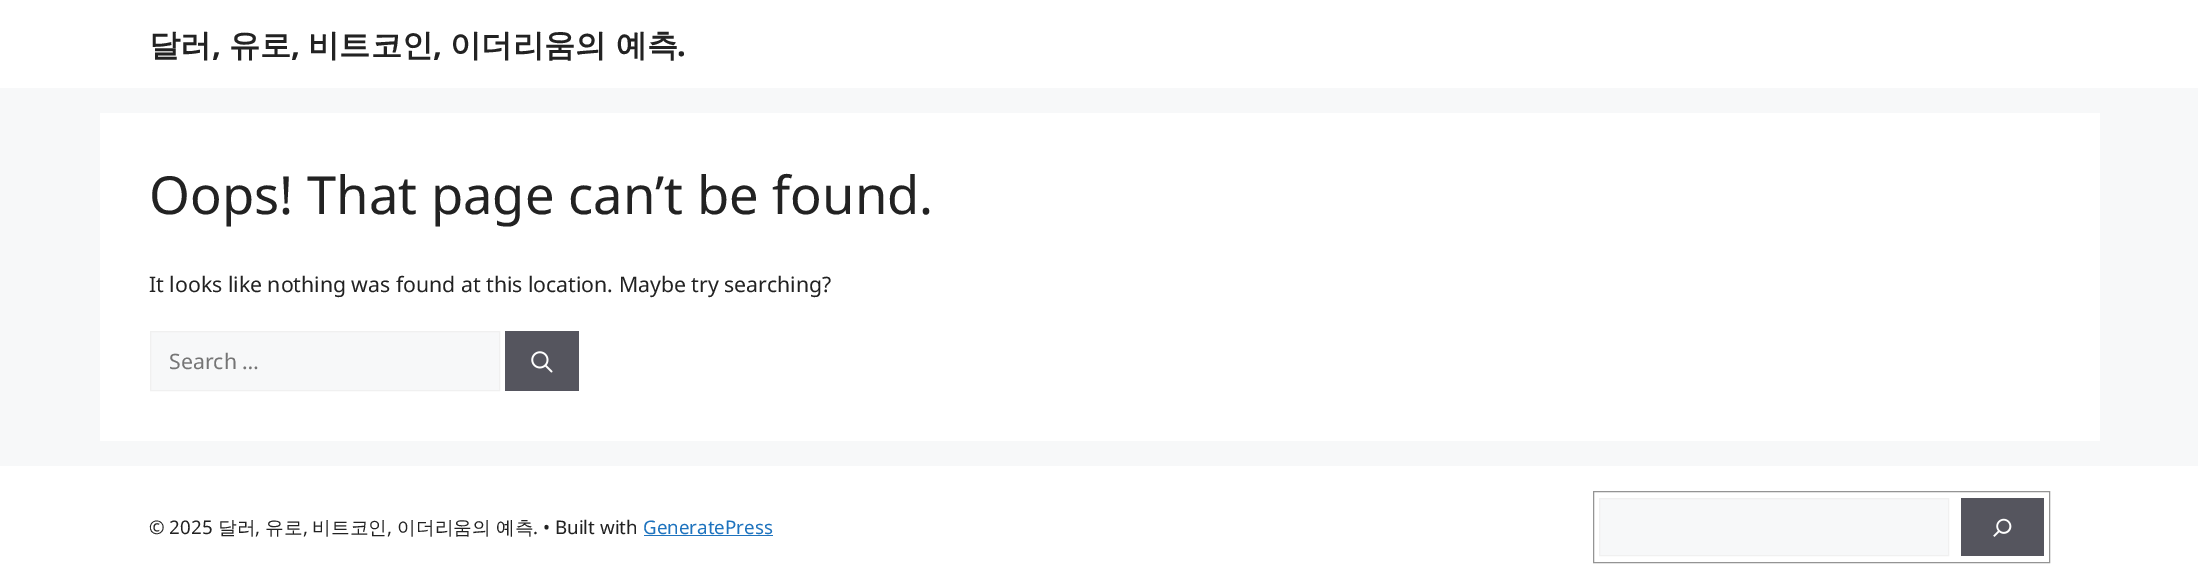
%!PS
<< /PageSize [2198 569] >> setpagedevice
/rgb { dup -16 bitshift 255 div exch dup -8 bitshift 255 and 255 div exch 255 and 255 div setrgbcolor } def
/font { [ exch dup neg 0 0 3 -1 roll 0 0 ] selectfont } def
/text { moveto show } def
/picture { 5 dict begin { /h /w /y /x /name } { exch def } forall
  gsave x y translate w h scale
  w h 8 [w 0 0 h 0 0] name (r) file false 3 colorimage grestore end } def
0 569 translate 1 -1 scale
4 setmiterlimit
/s1 { /WenQuanYiZenHei-Bold 31.25 font 16#222222 rgb } def
/s2 { /NotoSans-Bold 31.25 font 16#222222 rgb } def
/s3 { /NotoSans-Regular 52.5 font 16#222222 rgb } def
/s4 { /NotoSans-Regular 21.25 font 16#222222 rgb } def
/s5 { /NotoSans-Regular 21.25 font 16#757575 rgb } def
/s6 { /NotoSans-Regular 18.75 font 16#222222 rgb } def
/s7 { /WenQuanYiZenHei-Medium 18.75 font 16#222222 rgb } def
/s8 { /NotoSans-Regular 18.75 font 16#1E73BE rgb } def
16#F7F8F9 rgb
0 0 2198 569 rectfill
16#FFFFFF rgb
0 0 2198 88 rectfill
s1
(달러) 149 56 text
s2
(,) 212 56 text
s1
(유로) 229 56 text
s2
(,) 291 56 text
s1
(비트코인) 308 56 text
s2
(,) 433 56 text
s1
(이더리움의 예측) 450 56 text
s2
(.) 677 56 text
16#FFFFFF rgb
100 113 2000 328 rectfill
s3
(Oops! That page can’t be found.) 149 214 text
s4
(It looks like nothing was found at this location. Maybe try searching?) 149 292 text
16#F7F8F9 rgb
150.5 331.5 moveto 499.5 331.5 lineto 499.5 390.5 lineto 150.5 390.5 lineto closepath gsave fill grestore
16#F0F0F0 rgb
stroke
s5
(Search …) 169 369 text
16#55555E rgb
505 331 74 60 rectfill
(pic1.raw) 531 351 22 22 picture
16#FFFFFF rgb
0 466 2198 103 rectfill
s6
(© 2025) 149 534 text
s7
(달러) 218 534 text
s6
(,) 255 534 text
s7
(유로) 265 534 text
s6
(,) 303 534 text
s7
(비트코인) 312 534 text
s6
(,) 387 534 text
s7
(이더리움의) 397 534 text
(예측) 496 534 text
s6
(. • Built with) 533 534 text
s8
(GeneratePress) 643 534 text
644 535 129 1 rectfill
16#949494 rgb
1593.5 491.5 456 71 rectstroke
16#F7F8F9 rgb
1599.5 498.5 moveto 1948.5 498.5 lineto 1948.5 555.5 lineto 1599.5 555.5 lineto closepath gsave fill grestore
16#F0F0F0 rgb
stroke
16#55555E rgb
1961 498 83 58 rectfill
(pic2.raw) 1993 518 19 19 picture
showpage
